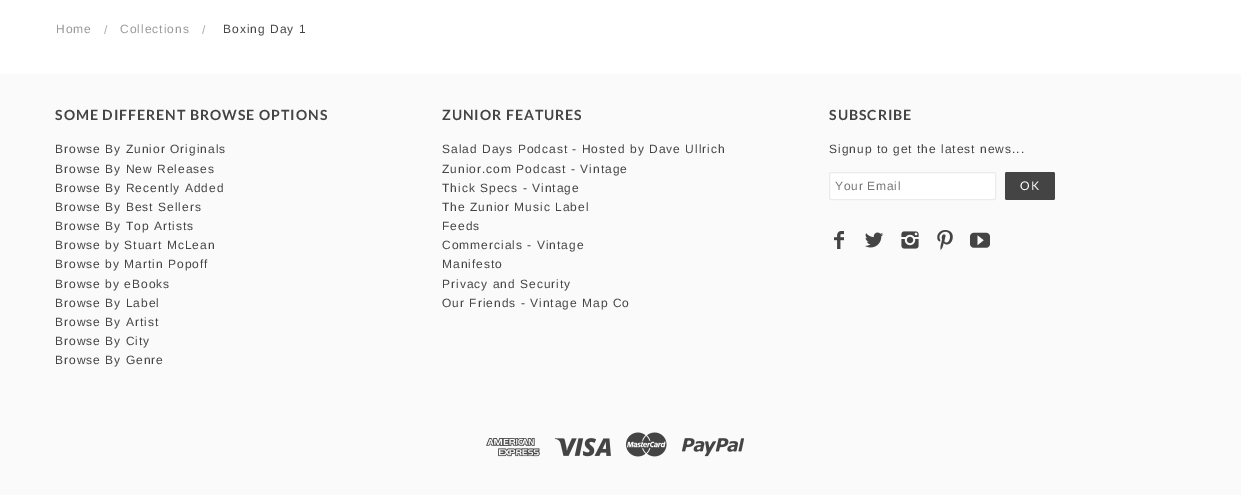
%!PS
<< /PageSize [1241 495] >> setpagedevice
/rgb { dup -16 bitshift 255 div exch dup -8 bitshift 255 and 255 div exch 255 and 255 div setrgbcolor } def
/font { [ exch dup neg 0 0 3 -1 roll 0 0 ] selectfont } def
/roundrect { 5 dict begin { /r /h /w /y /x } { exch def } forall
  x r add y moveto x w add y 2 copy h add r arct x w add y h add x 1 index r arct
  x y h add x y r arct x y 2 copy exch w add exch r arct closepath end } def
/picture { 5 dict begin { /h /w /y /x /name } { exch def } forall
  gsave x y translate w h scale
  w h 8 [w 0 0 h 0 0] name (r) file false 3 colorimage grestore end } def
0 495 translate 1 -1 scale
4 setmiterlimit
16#FFFFFF rgb
0 0 1241 495 rectfill
/LiberationSans-Regular 12 font
16#999999 rgb
56 33 moveto 1 0 (Home) ashow
16#AAAAAA rgb
104 34 moveto 1 0 (/) ashow
16#999999 rgb
120 33 moveto 1 0 (Collections) ashow
16#AAAAAA rgb
202 34 moveto 1 0 (/) ashow
16#444444 rgb
223 33 moveto 1 0 (Boxing Day 1) ashow
16#FAFAFA rgb
0 74 1241 421 rectfill
/Lato-Bold 14 font
16#444444 rgb
55 120 moveto 1 0 (SOME DIFFERENT BROWSE OPTIONS) ashow
/LiberationSans-Regular 12 font
55 153 moveto 1 0 (Browse By Zunior Originals) ashow
55 173 moveto 1 0 (Browse By New Releases) ashow
55 192 moveto 1 0 (Browse By Recently Added) ashow
55 211 moveto 1 0 (Browse By Best Sellers) ashow
55 230 moveto 1 0 (Browse By Top Artists) ashow
55 249 moveto 1 0 (Browse by Stuart McLean) ashow
55 268 moveto 1 0 (Browse by Martin Popoff) ashow
55 288 moveto 1 0 (Browse by eBooks) ashow
55 307 moveto 1 0 (Browse By Label) ashow
55 326 moveto 1 0 (Browse By Artist) ashow
55 345 moveto 1 0 (Browse By City) ashow
55 364 moveto 1 0 (Browse By Genre) ashow
/Lato-Bold 14 font
442 120 moveto 1 0 (ZUNIOR FEATURES) ashow
/LiberationSans-Regular 12 font
442 153 moveto 1 0 (Salad Days Podcast - Hosted by Dave Ullrich) ashow
442 173 moveto 1 0 (Zunior.com Podcast - Vintage) ashow
442 192 moveto 1 0 (Thick Specs - Vintage) ashow
442 211 moveto 1 0 (The Zunior Music Label) ashow
442 230 moveto 1 0 (Feeds) ashow
442 249 moveto 1 0 (Commercials - Vintage) ashow
442 268 moveto 1 0 (Manifesto) ashow
442 288 moveto 1 0 (Privacy and Security) ashow
442 307 moveto 1 0 (Our Friends - Vintage Map Co) ashow
/Lato-Bold 14 font
829 120 moveto 1 0 (SUBSCRIBE) ashow
/LiberationSans-Regular 12 font
829 153 moveto 1 0 (Signup to get the latest news...) ashow
16#FFFFFF rgb
829.5 172.5 166 27 1.5 roundrect gsave fill grestore
16#EBEBEB rgb
stroke
16#757575 rgb
835 190 moveto 0.75 0 (Your Email) ashow
16#444444 rgb
1005 172 50 28 2 roundrect fill
/Lato-Regular 12 font
16#FFFFFF rgb
1020 190 moveto 1 0 (OK) ashow
(pic1.raw) 834 231 10 18 picture
(pic2.raw) 865 232 19 16 picture
(pic3.raw) 901 231 18 18 picture
(pic4.raw) 937 230 16 20 picture
(pic5.raw) 970 232 20 16 picture
(pic6.raw) 486 438 54 19 picture
(pic7.raw) 555 438 56 19 picture
(pic8.raw) 626 432 41 25 picture
(pic9.raw) 682 438 62 19 picture
showpage
